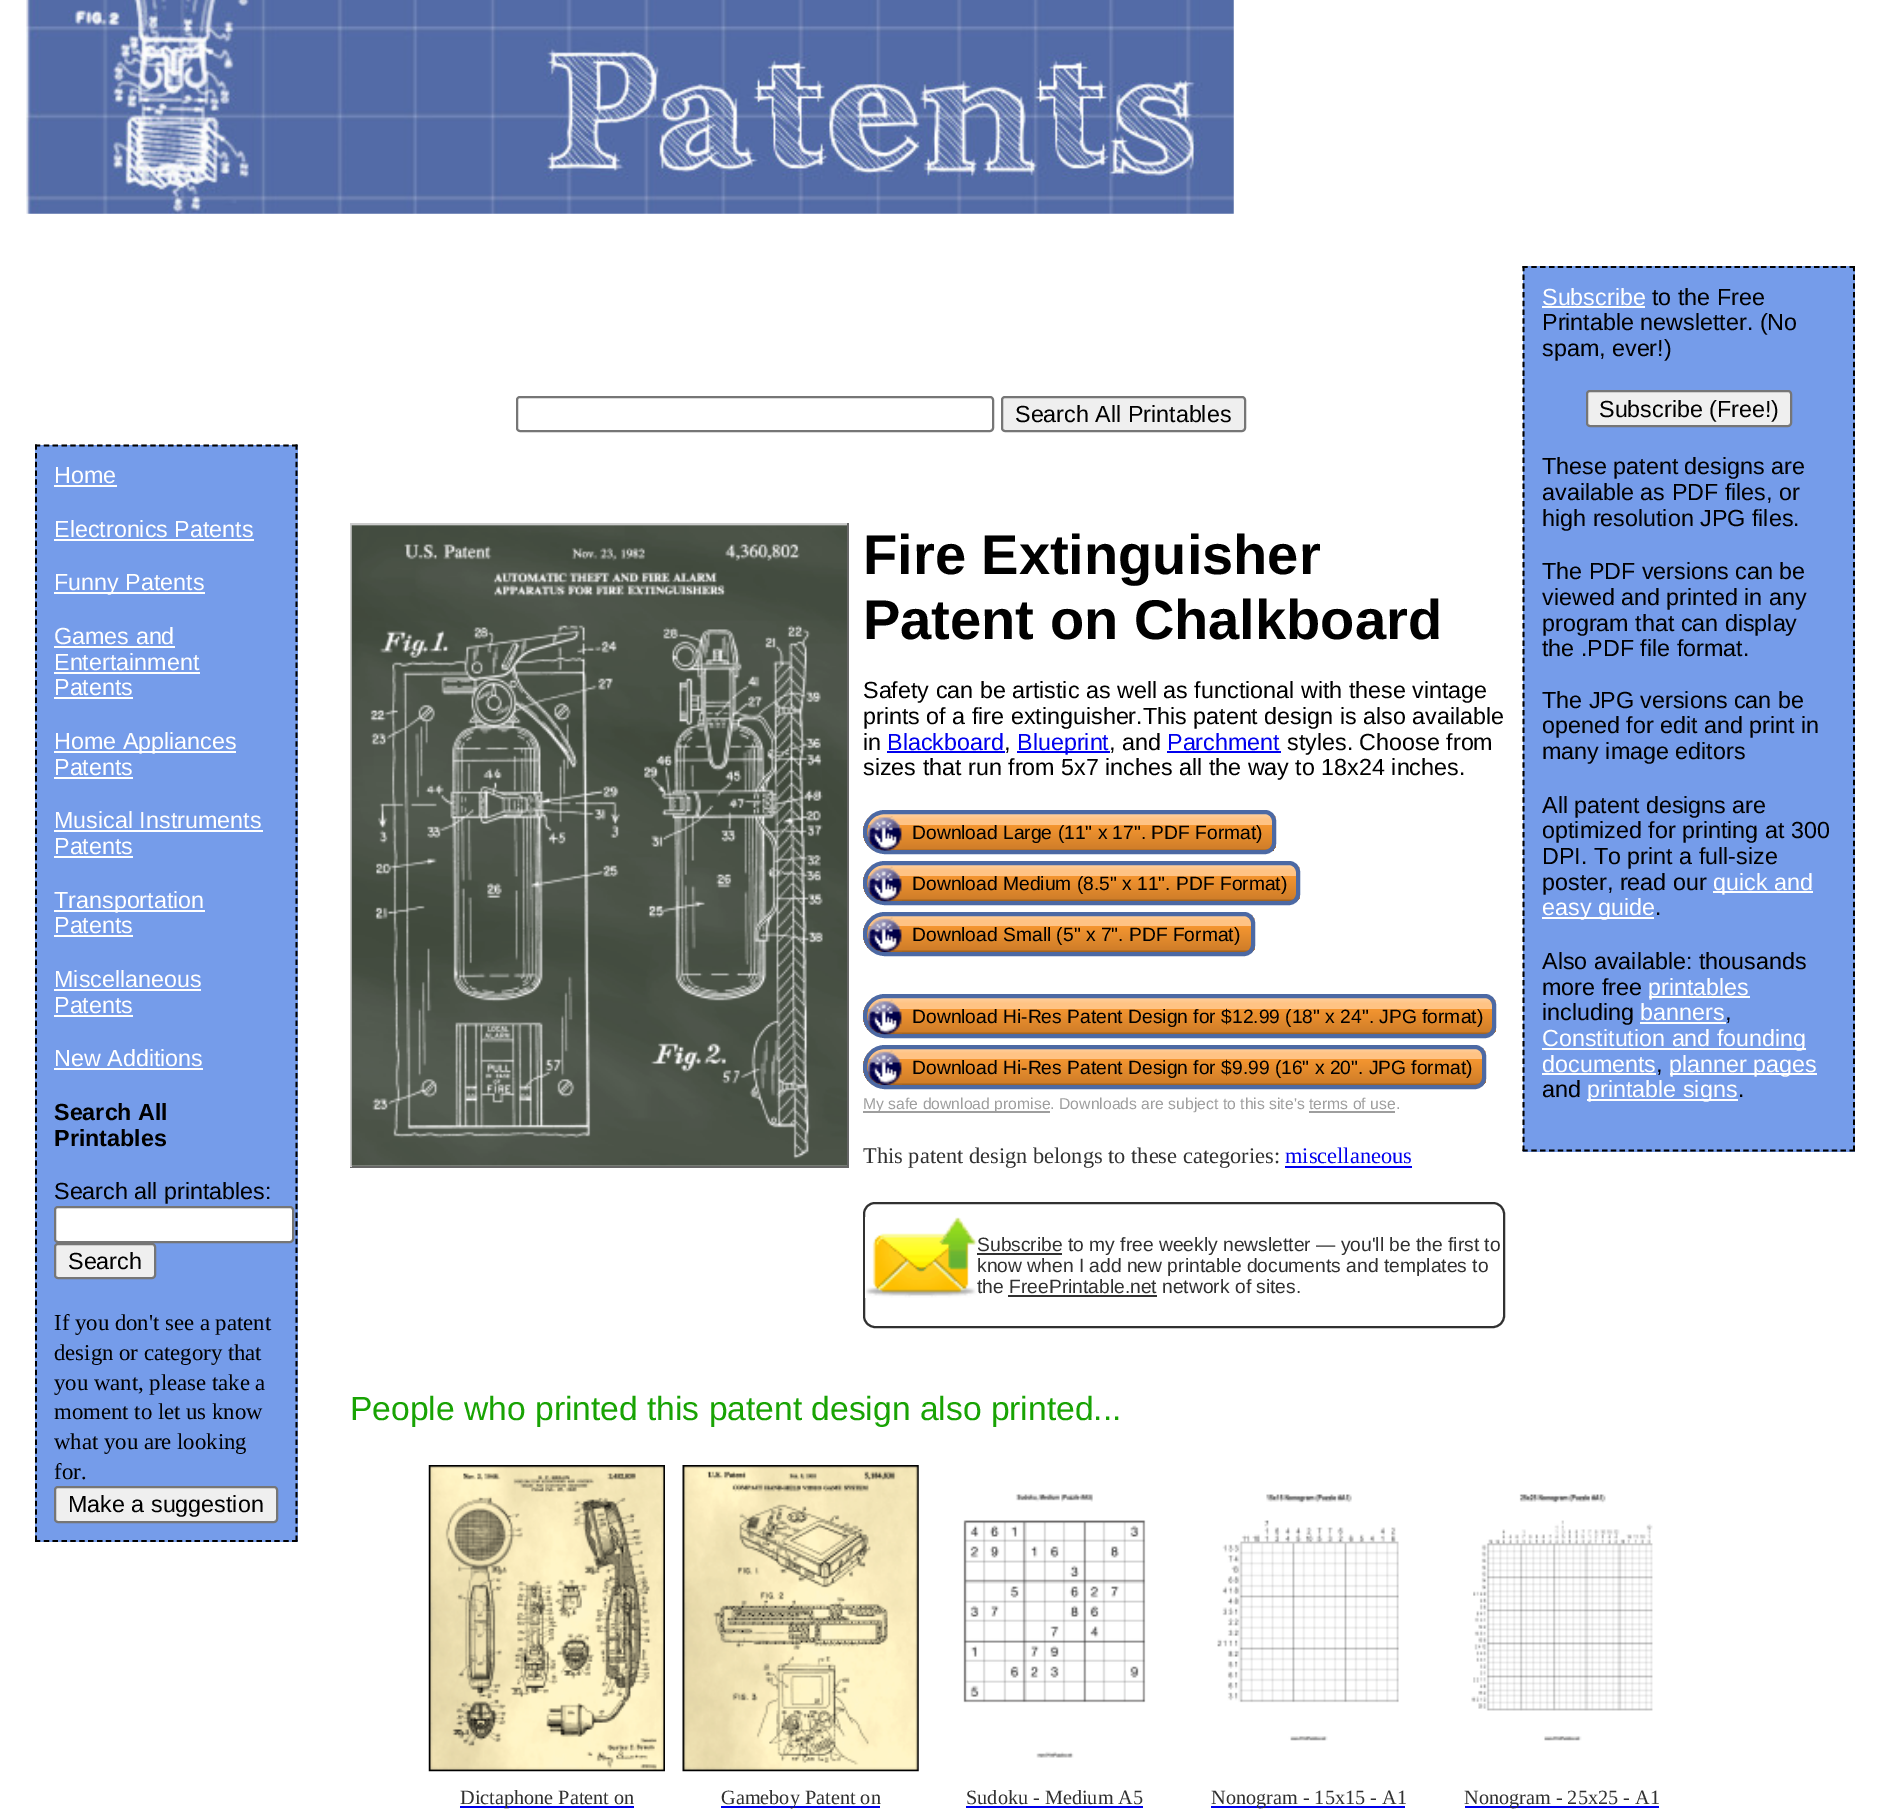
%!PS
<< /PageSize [1889 1817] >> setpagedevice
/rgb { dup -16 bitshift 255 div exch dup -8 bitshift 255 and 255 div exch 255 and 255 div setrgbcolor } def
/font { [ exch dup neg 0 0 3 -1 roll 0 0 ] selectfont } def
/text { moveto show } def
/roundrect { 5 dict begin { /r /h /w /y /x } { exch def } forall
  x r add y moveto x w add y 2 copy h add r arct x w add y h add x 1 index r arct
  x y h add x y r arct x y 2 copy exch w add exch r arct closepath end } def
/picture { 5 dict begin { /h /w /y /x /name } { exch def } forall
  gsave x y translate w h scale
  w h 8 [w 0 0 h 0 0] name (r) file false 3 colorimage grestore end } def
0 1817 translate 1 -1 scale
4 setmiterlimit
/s1 { /LiberationSans-Regular 23.3 font 16#000000 rgb } def
/s2 { /LiberationSans-Regular 23.3 font 16#FFFFFF rgb } def
/s3 { /LiberationSans-Bold 23.3 font 16#000000 rgb } def
/s4 { /LiberationSerif-Regular 22.75 font 16#000000 rgb } def
/s5 { /LiberationSans-Bold 56 font 16#000000 rgb } def
/s6 { /LiberationSans-Regular 23.3 font 16#0000EE rgb } def
/s7 { /LiberationSans-Regular 19.25 font 16#000000 rgb } def
/s8 { /LiberationSans-Regular 15.75 font 16#9E9E9E rgb } def
/s9 { /LiberationSerif-Regular 22.4 font 16#313131 rgb } def
/s10 { /LiberationSerif-Regular 22.4 font 16#0000EE rgb } def
/s11 { /LiberationSans-Regular 19.25 font 16#313131 rgb } def
/s12 { /LiberationSans-Regular 33.6 font 16#18A303 rgb } def
/s13 { /LiberationSerif-Regular 20.25 font 16#313131 rgb } def
16#FFFFFF rgb
0 0 1889 1817 rectfill
(pic1.raw) 26 0 1208 214 picture
16#767676 rgb
2 setlinewidth
517 397 476 34 3 roundrect stroke
16#EFEFEF rgb
1002 397 243 34 3 roundrect gsave fill grestore
16#767676 rgb
stroke
s1
(Search All Printables) 1015 422 text
16#759CEA rgb
1523 266 332 886 rectfill
16#000000 rgb
1.8 setlinewidth
[5.25 3.59] 0 setdash
1522.5 267 moveto 1855 267 lineto stroke
[5.25 3.46] 0 setdash
1854 266 moveto 1854 1151.5 lineto stroke
[5.25 3.59] 0 setdash
1522.5 1150.5 moveto 1855 1150.5 lineto stroke
[5.25 3.46] 0 setdash
1523.5 266 moveto 1523.5 1151.5 lineto stroke
s2
(Subscribe) 1542 305 text
1542 306 103 2 rectfill
s1
(to the Free) 1652 305 text
(Printable newsletter. \(No) 1542 330 text
(spam, ever!\)) 1542 356 text
16#EFEFEF rgb
1587 391 204 35 3 roundrect gsave fill grestore
16#767676 rgb
2 setlinewidth
[] 0 setdash
stroke
s1
(Subscribe \(Free!\)) 1599 417 text
(These patent designs are) 1542 474 text
(available as PDF files, or) 1542 500 text
(high resolution JPG files.) 1542 526 text
(The PDF versions can be) 1542 579 text
(viewed and printed in any) 1542 605 text
(program that can display) 1542 631 text
(the .PDF file format.) 1542 656 text
(The JPG versions can be) 1542 708 text
(opened for edit and print in) 1542 733 text
(many image editors) 1542 759 text
(All patent designs are) 1542 813 text
(optimized for printing at 300) 1542 838 text
(DPI. To print a full-size) 1542 864 text
(poster, read our) 1542 890 text
16#FFFFFF rgb
1713 891 100 2 rectfill
(quick and) 1713 890 text
1542 917 112 2 rectfill
(easy guide) 1542 915 text
s1
(.) 1655 915 text
(Also available: thousands) 1542 969 text
(more free) 1542 995 text
16#FFFFFF rgb
1649 996 101 2 rectfill
(printables) 1648 995 text
s1
(including) 1542 1020 text
s2
(banners) 1640 1020 text
1640 1022 86 2 rectfill
s1
(,) 1725 1020 text
16#FFFFFF rgb
1542 1048 264 2 rectfill
(Constitution and founding) 1542 1046 text
(documents) 1542 1072 text
1542 1073 114 2 rectfill
s1
(,) 1656 1072 text
16#FFFFFF rgb
1670 1073 147 2 rectfill
(planner pages) 1669 1072 text
s1
(and) 1542 1097 text
16#FFFFFF rgb
1587 1099 151 2 rectfill
(printable signs) 1587 1097 text
s1
(.) 1738 1097 text
16#759CEA rgb
35 445 263 1097 rectfill
16#000000 rgb
1.8 setlinewidth
[5.25 3.62] 0 setdash
35 445.5 moveto 297.5 445.5 lineto stroke
[5.25 3.48] 0 setdash
296.5 444.5 moveto 296.5 1542 lineto stroke
[5.25 3.62] 0 setdash
35 1541 moveto 297.5 1541 lineto stroke
[5.25 3.48] 0 setdash
36 444.5 moveto 36 1542 lineto stroke
s2
(Home) 54 483 text
54 485 63 2 rectfill
(Electronics Patents) 54 537 text
54 539 200 2 rectfill
54 592 151 2 rectfill
(Funny Patents) 54 590 text
(Games and) 54 644 text
54 646 121 2 rectfill
(Entertainment) 54 670 text
54 672 146 2 rectfill
(Patents) 54 695 text
54 697 79 2 rectfill
54 751 182 2 rectfill
(Home Appliances) 54 749 text
(Patents) 54 775 text
54 777 79 2 rectfill
(Musical Instruments) 54 828 text
54 830 209 2 rectfill
(Patents) 54 854 text
54 856 79 2 rectfill
54 910 151 2 rectfill
(Transportation) 54 908 text
(Patents) 54 933 text
54 935 79 2 rectfill
(Miscellaneous) 54 987 text
54 989 147 2 rectfill
(Patents) 54 1013 text
54 1015 79 2 rectfill
(New Additions) 54 1066 text
54 1068 149 2 rectfill
s3
(Search All) 54 1120 text
(Printables) 54 1146 text
s1
(Search all printables:) 54 1199 text
16#FFFFFF rgb
55 1207 238 35 3 roundrect gsave fill grestore
16#767676 rgb
2 setlinewidth
[] 0 setdash
stroke
16#EFEFEF rgb
55 1244 100 34 3 roundrect gsave fill grestore
16#767676 rgb
stroke
s1
(Search) 68 1269 text
s4
(If you don't see a patent) 54 1330 text
(design or category that) 54 1360 text
(you want, please take a) 54 1390 text
(moment to let us know) 54 1419 text
(what you are looking) 54 1449 text
(for.) 54 1479 text
16#EFEFEF rgb
55 1487 222 35 3 roundrect gsave fill grestore
16#767676 rgb
stroke
s1
(Make a suggestion) 68 1512 text
16#CCCCCC rgb
350 523 499 2 rectfill
16#666666 rgb
847 523 2 644 rectfill
350 1166 499 2 rectfill
16#CCCCCC rgb
350 523 2 644 rectfill
(pic2.raw) 351 525 496 641 picture
s5
(Fire Extinguisher) 863 574 text
(Patent on Chalkboard) 863 639 text
s1
(Safety can be artistic as well as functional with these vintage) 863 698 text
(prints of a fire extinguisher.This patent design is also available) 863 724 text
(in) 863 750 text
s6
(Blackboard) 887 750 text
887 751 118 2 rectfill
s1
(,) 1004 750 text
16#0000EE rgb
1017 751 93 2 rectfill
(Blueprint) 1017 750 text
s1
(, and) 1109 750 text
s6
(Parchment) 1167 750 text
1167 751 114 2 rectfill
s1
(styles. Choose from) 1287 750 text
(sizes that run from 5x7 inches all the way to 18x24 inches.) 863 775 text
gsave
885 810 moveto 1265 810 lineto 1271 810 1276 815 1276 821 curveto 1276 843 lineto 1276 849 1271 854 1265 854 curveto 885 854 lineto 873 854 863 844 863 832 curveto 863 820 873 810 885 810 curveto closepath clip newpath
gsave 863 814 moveto 1276 814 lineto 1276 851 lineto 863 851 lineto closepath clip newpath
<< /ShadingType 2 /ColorSpace /DeviceRGB /Coords [1069 814 1069 851] /Extend [true true] /Function << /FunctionType 3 /Domain [0 1] /Functions [<< /FunctionType 2 /Domain [0 1] /C0 [1 0.816 0.62] /C1 [1 0.765 0.518] /N 1 >> << /FunctionType 2 /Domain [0 1] /C0 [1 0.765 0.518] /C1 [1 0.765 0.518] /N 1 >> << /FunctionType 2 /Domain [0 1] /C0 [1 0.765 0.518] /C1 [0.957 0.584 0.188] /N 1 >> << /FunctionType 2 /Domain [0 1] /C0 [0.957 0.584 0.188] /C1 [0.816 0.494 0.161] /N 1 >> << /FunctionType 2 /Domain [0 1] /C0 [0.816 0.494 0.161] /C1 [0.749 0.455 0.145] /N 1 >> << /FunctionType 2 /Domain [0 1] /C0 [0.749 0.455 0.145] /C1 [0.643 0.392 0.125] /N 1 >>] /Bounds [0.15 0.3 0.31 0.94 0.95] /Encode [0 1 0 1 0 1 0 1 0 1 0 1] >> >> shfill grestore
grestore
16#4C69A4 rgb
4 setlinewidth
885 812 moveto 1265 812 lineto 1270 812 1274 816 1274 821 curveto 1274 843 lineto 1274 848 1270 852 1265 852 curveto 885 852 lineto 874 852 865 843 865 832 curveto 865 821 874 812 885 812 curveto closepath stroke
(pic3.raw) 868 816 34 35 picture
s7
(Download Large \(11" x 17". PDF Format\)) 912 839 text
gsave
885 861 moveto 1289 861 lineto 1295 861 1300 866 1300 872 curveto 1300 894 lineto 1300 900 1295 905 1289 905 curveto 885 905 lineto 873 905 863 895 863 883 curveto 863 871 873 861 885 861 curveto closepath clip newpath
gsave 863 865 moveto 1300 865 lineto 1300 901 lineto 863 901 lineto closepath clip newpath
<< /ShadingType 2 /ColorSpace /DeviceRGB /Coords [1082 865 1082 901] /Extend [true true] /Function << /FunctionType 3 /Domain [0 1] /Functions [<< /FunctionType 2 /Domain [0 1] /C0 [1 0.816 0.62] /C1 [1 0.765 0.518] /N 1 >> << /FunctionType 2 /Domain [0 1] /C0 [1 0.765 0.518] /C1 [1 0.765 0.518] /N 1 >> << /FunctionType 2 /Domain [0 1] /C0 [1 0.765 0.518] /C1 [0.957 0.584 0.188] /N 1 >> << /FunctionType 2 /Domain [0 1] /C0 [0.957 0.584 0.188] /C1 [0.816 0.494 0.161] /N 1 >> << /FunctionType 2 /Domain [0 1] /C0 [0.816 0.494 0.161] /C1 [0.749 0.455 0.145] /N 1 >> << /FunctionType 2 /Domain [0 1] /C0 [0.749 0.455 0.145] /C1 [0.643 0.392 0.125] /N 1 >>] /Bounds [0.15 0.3 0.31 0.94 0.95] /Encode [0 1 0 1 0 1 0 1 0 1 0 1] >> >> shfill grestore
grestore
16#4C69A4 rgb
885 863 moveto 1289 863 lineto 1294 863 1298 867 1298 872 curveto 1298 894 lineto 1298 899 1294 903 1289 903 curveto 885 903 lineto 874 903 865 894 865 883 curveto 865 872 874 863 885 863 curveto closepath stroke
(pic4.raw) 868 866 34 36 picture
s7
(Download Medium \(8.5" x 11". PDF Format\)) 912 890 text
gsave
885 912 moveto 1244 912 lineto 1250 912 1255 917 1255 923 curveto 1255 945 lineto 1255 951 1250 956 1244 956 curveto 885 956 lineto 873 956 863 946 863 934 curveto 863 922 873 912 885 912 curveto closepath clip newpath
gsave 863 915 moveto 1255 915 lineto 1255 952 lineto 863 952 lineto closepath clip newpath
<< /ShadingType 2 /ColorSpace /DeviceRGB /Coords [1059 915 1059 952] /Extend [true true] /Function << /FunctionType 3 /Domain [0 1] /Functions [<< /FunctionType 2 /Domain [0 1] /C0 [1 0.816 0.62] /C1 [1 0.765 0.518] /N 1 >> << /FunctionType 2 /Domain [0 1] /C0 [1 0.765 0.518] /C1 [1 0.765 0.518] /N 1 >> << /FunctionType 2 /Domain [0 1] /C0 [1 0.765 0.518] /C1 [0.957 0.584 0.188] /N 1 >> << /FunctionType 2 /Domain [0 1] /C0 [0.957 0.584 0.188] /C1 [0.816 0.494 0.161] /N 1 >> << /FunctionType 2 /Domain [0 1] /C0 [0.816 0.494 0.161] /C1 [0.749 0.455 0.145] /N 1 >> << /FunctionType 2 /Domain [0 1] /C0 [0.749 0.455 0.145] /C1 [0.643 0.392 0.125] /N 1 >>] /Bounds [0.15 0.3 0.31 0.94 0.95] /Encode [0 1 0 1 0 1 0 1 0 1 0 1] >> >> shfill grestore
grestore
16#4C69A4 rgb
885 914 moveto 1244 914 lineto 1249 914 1253 918 1253 923 curveto 1253 945 lineto 1253 950 1249 954 1244 954 curveto 885 954 lineto 874 954 865 945 865 934 curveto 865 923 874 914 885 914 curveto closepath stroke
(pic5.raw) 868 917 34 36 picture
s7
(Download Small \(5" x 7". PDF Format\)) 912 941 text
gsave
885 994 moveto 1485 994 lineto 1491 994 1496 999 1496 1005 curveto 1496 1027 lineto 1496 1033 1491 1038 1485 1038 curveto 885 1038 lineto 873 1038 863 1028 863 1016 curveto 863 1004 873 994 885 994 curveto closepath clip newpath
gsave 863 998 moveto 1496 998 lineto 1496 1034 lineto 863 1034 lineto closepath clip newpath
<< /ShadingType 2 /ColorSpace /DeviceRGB /Coords [1180 998 1180 1034] /Extend [true true] /Function << /FunctionType 3 /Domain [0 1] /Functions [<< /FunctionType 2 /Domain [0 1] /C0 [1 0.816 0.62] /C1 [1 0.765 0.518] /N 1 >> << /FunctionType 2 /Domain [0 1] /C0 [1 0.765 0.518] /C1 [1 0.765 0.518] /N 1 >> << /FunctionType 2 /Domain [0 1] /C0 [1 0.765 0.518] /C1 [0.957 0.584 0.188] /N 1 >> << /FunctionType 2 /Domain [0 1] /C0 [0.957 0.584 0.188] /C1 [0.816 0.494 0.161] /N 1 >> << /FunctionType 2 /Domain [0 1] /C0 [0.816 0.494 0.161] /C1 [0.749 0.455 0.145] /N 1 >> << /FunctionType 2 /Domain [0 1] /C0 [0.749 0.455 0.145] /C1 [0.643 0.392 0.125] /N 1 >>] /Bounds [0.15 0.3 0.31 0.94 0.95] /Encode [0 1 0 1 0 1 0 1 0 1 0 1] >> >> shfill grestore
grestore
16#4C69A4 rgb
885 996 moveto 1485 996 lineto 1490 996 1494 1000 1494 1005 curveto 1494 1027 lineto 1494 1032 1490 1036 1485 1036 curveto 885 1036 lineto 874 1036 865 1027 865 1016 curveto 865 1005 874 996 885 996 curveto closepath stroke
(pic4.raw) 868 999 34 36 picture
s7
(Download Hi-Res Patent Design for $12.99 \(18" x 24". JPG format\)) 912 1023 text
gsave
885 1045 moveto 1475 1045 lineto 1481 1045 1486 1050 1486 1056 curveto 1486 1078 lineto 1486 1084 1481 1089 1475 1089 curveto 885 1089 lineto 873 1089 863 1079 863 1067 curveto 863 1055 873 1045 885 1045 curveto closepath clip newpath
gsave 863 1048 moveto 1486 1048 lineto 1486 1085 lineto 863 1085 lineto closepath clip newpath
<< /ShadingType 2 /ColorSpace /DeviceRGB /Coords [1174 1048 1174 1085] /Extend [true true] /Function << /FunctionType 3 /Domain [0 1] /Functions [<< /FunctionType 2 /Domain [0 1] /C0 [1 0.816 0.62] /C1 [1 0.765 0.518] /N 1 >> << /FunctionType 2 /Domain [0 1] /C0 [1 0.765 0.518] /C1 [1 0.765 0.518] /N 1 >> << /FunctionType 2 /Domain [0 1] /C0 [1 0.765 0.518] /C1 [0.957 0.584 0.188] /N 1 >> << /FunctionType 2 /Domain [0 1] /C0 [0.957 0.584 0.188] /C1 [0.816 0.494 0.161] /N 1 >> << /FunctionType 2 /Domain [0 1] /C0 [0.816 0.494 0.161] /C1 [0.749 0.455 0.145] /N 1 >> << /FunctionType 2 /Domain [0 1] /C0 [0.749 0.455 0.145] /C1 [0.643 0.392 0.125] /N 1 >>] /Bounds [0.15 0.3 0.31 0.94 0.95] /Encode [0 1 0 1 0 1 0 1 0 1 0 1] >> >> shfill grestore
grestore
16#4C69A4 rgb
885 1047 moveto 1475 1047 lineto 1480 1047 1484 1051 1484 1056 curveto 1484 1078 lineto 1484 1083 1480 1087 1475 1087 curveto 885 1087 lineto 874 1087 865 1078 865 1067 curveto 865 1056 874 1047 885 1047 curveto closepath stroke
(pic5.raw) 868 1050 34 36 picture
s7
(Download Hi-Res Patent Design for $9.99 \(16" x 20". JPG format\)) 912 1074 text
16#9E9E9E rgb
863 1111 187 2 rectfill
s8
(My safe download promise. Downloads are subject to this site's terms of use.) 863 1109 text
1309 1111 86 2 rectfill
s9
(This patent design belongs to these categories:) 863 1163 text
s10
(miscellaneous) 1285 1163 text
1285 1166 127 2 rectfill
16#313131 rgb
2 setlinewidth
864 1203 640 124 11 roundrect stroke
(pic6.raw) 865 1217 112 81 picture
977 1253 85 2 rectfill
s11
(Subscribe to my free weekly newsletter — you'll be the first to) 977 1251 text
(know when I add new printable documents and templates to) 977 1272 text
(the FreePrintable.net network of sites.) 977 1293 text
1008 1295 149 2 rectfill
s12
(People who printed this patent design also printed...) 350 1420 text
(pic7.raw) 428 1465 237 307 picture
16#0000EE rgb
460 1806 174 2 rectfill
s13
(Dictaphone Patent on) 460 1804 text
(pic8.raw) 682 1465 237 307 picture
16#0000EE rgb
721 1806 159 2 rectfill
s13
(Gameboy Patent on) 721 1804 text
(pic9.raw) 963 1493 183 265 picture
(Sudoku - Medium A5) 966 1804 text
16#0000EE rgb
966 1806 177 2 rectfill
(pic10.raw) 1217 1494 182 247 picture
1211 1806 194 2 rectfill
s13
(Nonogram - 15x15 - A1) 1211 1804 text
(pic11.raw) 1471 1494 182 247 picture
16#0000EE rgb
1465 1806 194 2 rectfill
s13
(Nonogram - 25x25 - A1) 1464 1804 text
showpage
